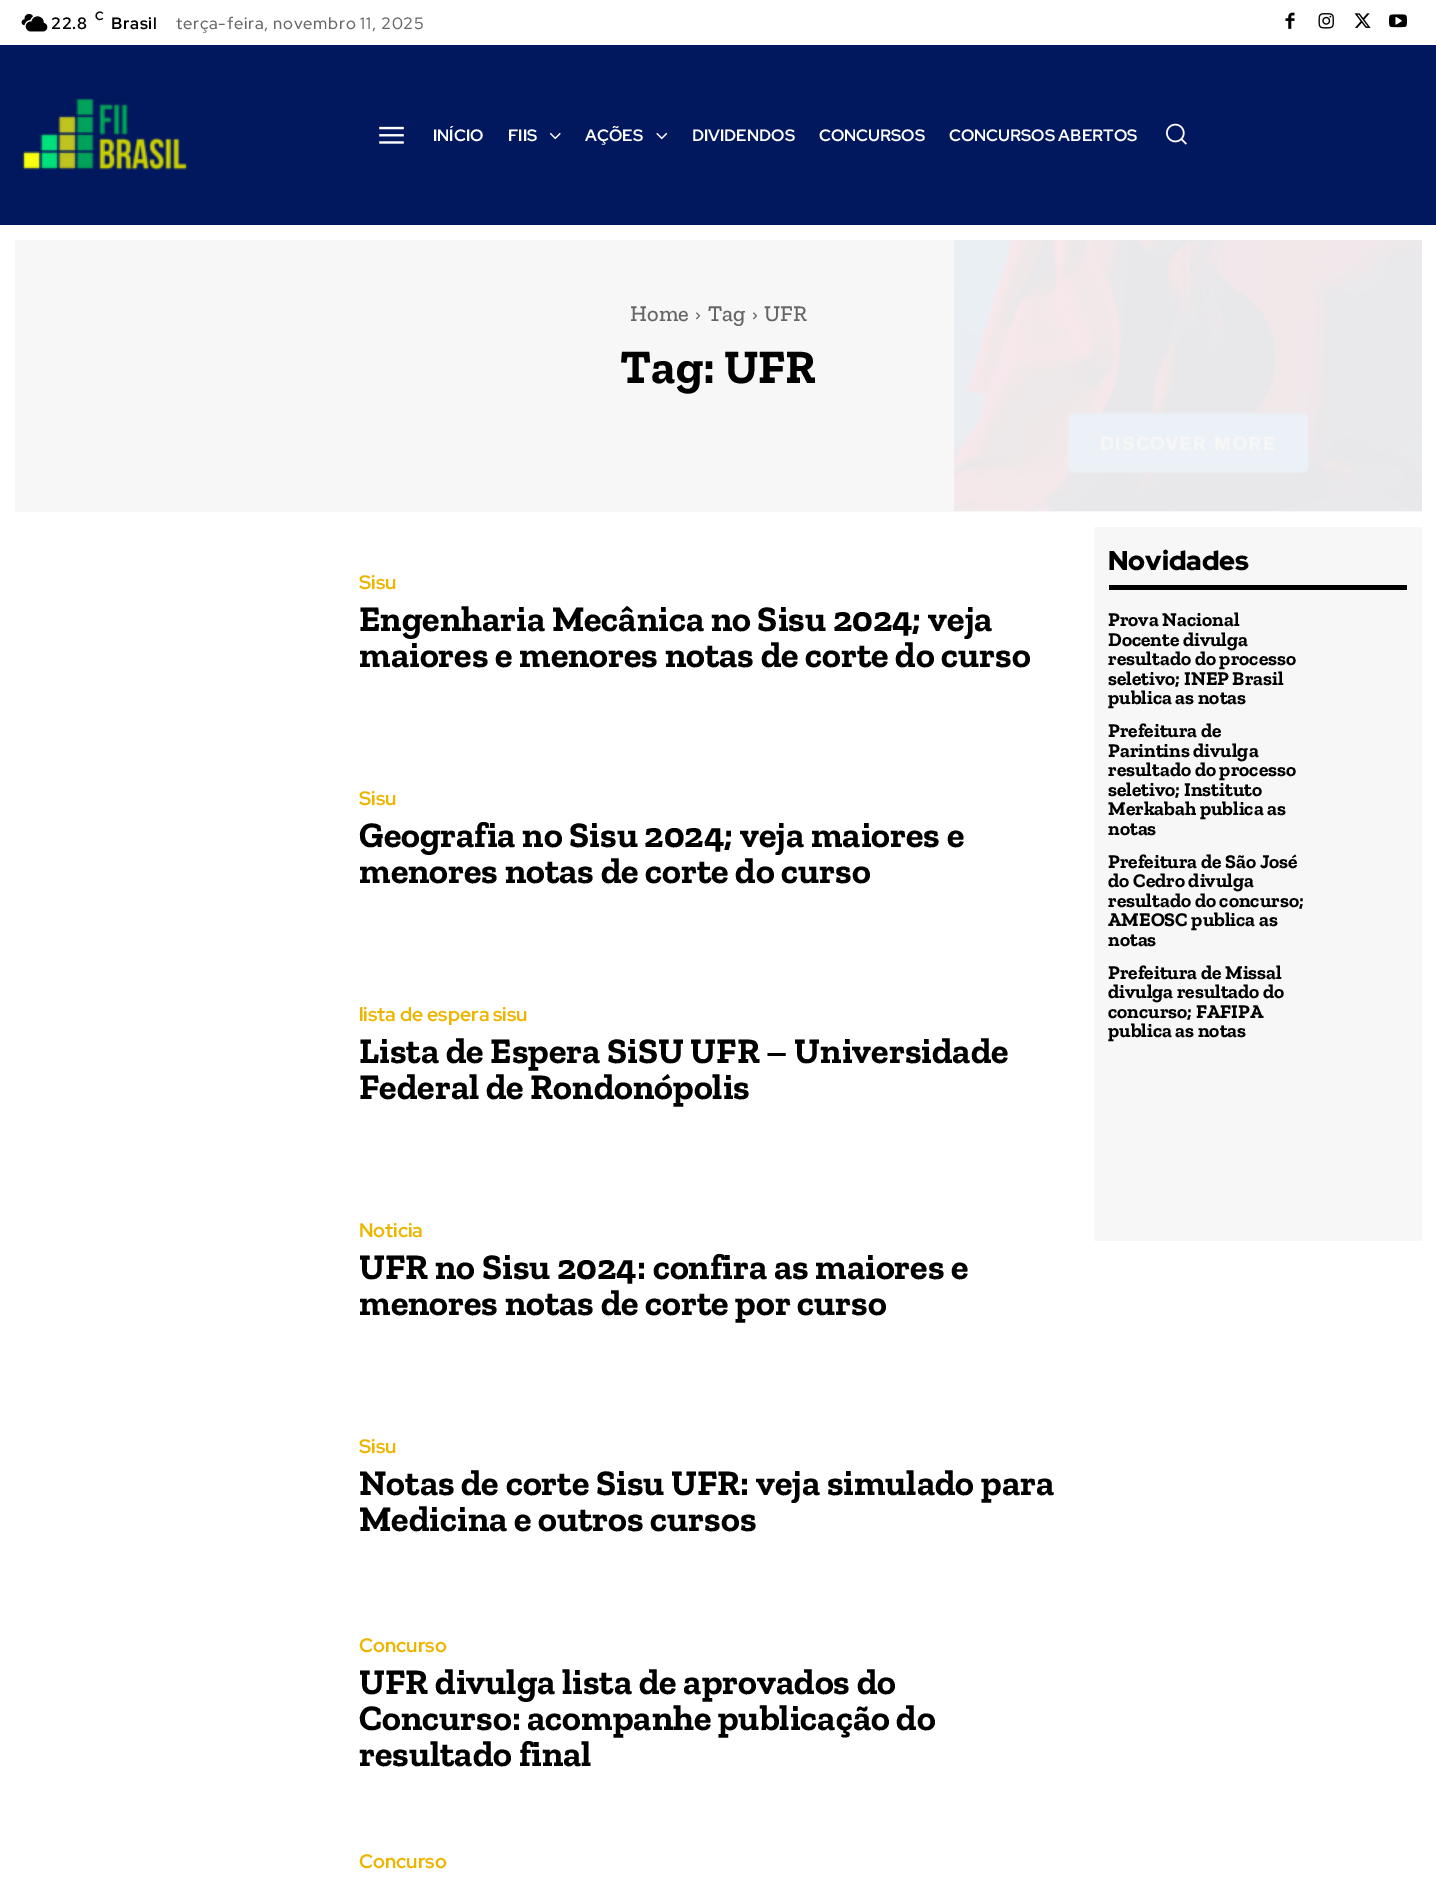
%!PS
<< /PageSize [1436 1897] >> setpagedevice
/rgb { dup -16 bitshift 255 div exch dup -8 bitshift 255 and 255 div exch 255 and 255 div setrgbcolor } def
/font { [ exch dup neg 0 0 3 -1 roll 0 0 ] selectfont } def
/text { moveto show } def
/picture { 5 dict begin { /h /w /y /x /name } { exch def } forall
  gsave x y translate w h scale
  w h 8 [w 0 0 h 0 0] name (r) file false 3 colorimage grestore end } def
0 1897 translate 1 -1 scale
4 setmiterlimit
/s1 { /RedHatDisplay-Bold 16.5 font 16#FFFFFF rgb } def
/s2 { /ZillaSlab-Medium 22.5 font 16#666666 rgb } def
/s3 { /ZillaSlab-Bold 48 font 16#000000 rgb } def
/s4 { /RedHatDisplay-Bold 19.5 font 16#EDB500 rgb } def
/s5 { /ZillaSlab-Bold 36 font 16#000000 rgb } def
/s6 { /RedHatDisplay-Black 27 font 16#000000 rgb } def
/s7 { /ZillaSlab-Bold 19.5 font 16#000000 rgb } def
16#FFFFFF rgb
0 0 1436 1897 rectfill
(pic1.raw) 21 13 27 19 picture
/RedHatDisplay-Bold 12 font
16#000000 rgb
95 20 moveto 0.75 0 (C) ashow
/RedHatDisplay-Bold 16.5 font
51 29 moveto 0.75 0 (22.8) ashow
111 29 moveto 0.75 0 (Brasil) ashow
/RedHatDisplay-Medium 16.5 font
16#666666 rgb
176 29 moveto 0.75 0 (terça-feira, novembro 11, 2025) ashow
(pic2.raw) 1285 12 10 17 picture
(pic3.raw) 1318 13 16 16 picture
(pic4.raw) 1354 13 17 15 picture
(pic5.raw) 1389 14 18 14 picture
16#01175E rgb
0 45 1436 180 rectfill
(pic6.raw) 22 98 166 72 picture
(pic7.raw) 379 126 25 18 picture
s1
(INÍCIO) 433 141 text
(FIIS) 508 141 text
(pic8.raw) 549 132 12 8 picture
(AÇÕES) 585 141 text
(pic9.raw) 656 132 12 8 picture
(DIVIDENDOS) 692 141 text
(CONCURSOS) 819 141 text
(CONCURSOS ABERTOS) 949 141 text
(pic10.raw) 1166 123 21 22 picture
16#F7F7F7 rgb
15 240 1407 272 rectfill
(pic11.raw) 954 240 468 271 picture
s2
(Home) 630 321 text
(pic12.raw) 696 312 4 8 picture
(Tag) 708 321 text
(pic12.raw) 753 312 4 8 picture
(UFR) 764 321 text
s3
(Tag: UFR) 620 383 text
s4
(Sisu) 359 589 text
s5
(Engenharia Mecânica no Sisu 2024; veja) 359 631 text
(maiores e menores notas de corte do curso) 359 667 text
s4
(Sisu) 359 805 text
s5
(Geografia no Sisu 2024; veja maiores e) 359 847 text
(menores notas de corte do curso) 359 883 text
s4
(lista de espera sisu) 359 1021 text
s5
(Lista de Espera SiSU UFR – Universidade) 359 1063 text
(Federal de Rondonópolis) 359 1099 text
s4
(Noticia) 359 1237 text
s5
(UFR no Sisu 2024: confira as maiores e) 359 1279 text
(menores notas de corte por curso) 359 1315 text
s4
(Sisu) 359 1453 text
s5
(Notas de corte Sisu UFR: veja simulado para) 359 1495 text
(Medicina e outros cursos) 359 1531 text
s4
(Concurso) 359 1652 text
s5
(UFR divulga lista de aprovados do) 359 1694 text
(Concurso: acompanhe publicação do) 359 1730 text
(resultado final) 359 1766 text
s4
(Concurso) 359 1868 text
16#F7F7F7 rgb
1094 527 328 714 rectfill
16#000000 rgb
1109 585 298 5 rectfill
s6
(Novidades) 1108 570 text
s7
(Prova Nacional) 1108 626 text
(Docente divulga) 1108 646 text
(resultado do processo) 1108 665 text
(seletivo; INEP Brasil) 1108 685 text
(publica as notas) 1108 704 text
(Prefeitura de) 1108 737 text
(Parintins divulga) 1108 757 text
(resultado do processo) 1108 776 text
(seletivo; Instituto) 1108 796 text
(Merkabah publica as) 1108 815 text
(notas) 1108 835 text
(Prefeitura de São José) 1108 868 text
(do Cedro divulga) 1108 887 text
(resultado do concurso;) 1108 907 text
(AMEOSC publica as) 1108 926 text
(notas) 1108 946 text
(Prefeitura de Missal) 1108 979 text
(divulga resultado do) 1108 998 text
(concurso; FAFIPA) 1108 1018 text
(publica as notas) 1108 1037 text
showpage
